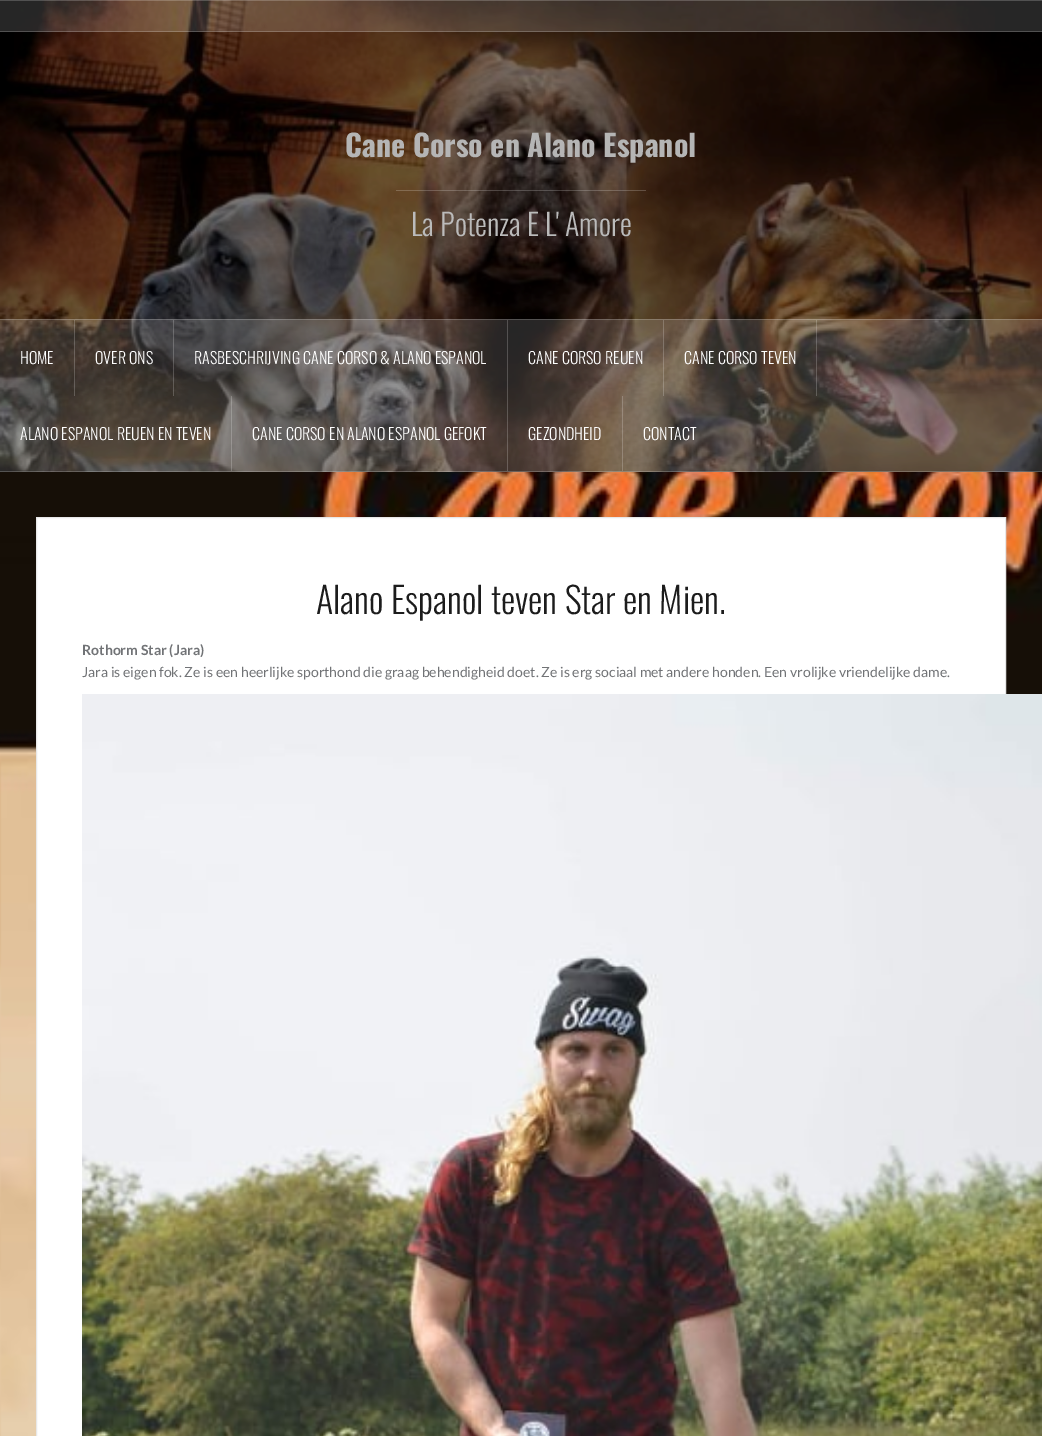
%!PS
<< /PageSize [1042 1436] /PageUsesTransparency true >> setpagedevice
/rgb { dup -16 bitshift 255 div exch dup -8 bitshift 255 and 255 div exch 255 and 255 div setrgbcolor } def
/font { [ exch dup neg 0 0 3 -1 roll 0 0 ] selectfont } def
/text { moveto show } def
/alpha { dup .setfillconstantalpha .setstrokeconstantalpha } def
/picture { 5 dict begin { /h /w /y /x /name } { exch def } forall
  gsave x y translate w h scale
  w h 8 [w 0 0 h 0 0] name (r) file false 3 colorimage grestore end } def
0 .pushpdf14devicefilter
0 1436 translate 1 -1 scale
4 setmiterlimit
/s1 { /Oswald-Bold 30 font 16#B5B5B5 rgb } def
/s2 { /Oswald-Light 30 font 16#BBBBBB rgb } def
/s3 { /Oswald-Light 16 font 16#FFFFFF rgb } def
/s4 { /Oswald-Light 36 font 16#1C1C1C rgb } def
/s5 { /Lato-Bold 14 font 16#717376 rgb } def
/s6 { /Lato-Regular 14 font 16#717376 rgb } def
16#FFFFFF rgb
0 0 1042 1436 rectfill
(pic1.raw) 0 472 1042 964 picture
(pic2.raw) 0 0 1042 472 picture
0.15 alpha
0 0 1042 32 rectfill
0.2 alpha
0 0 1042 1 rectfill
0 31 1042 1 rectfill
1 alpha
s1
(Cane Corso en Alano Espanol) 345 157 text
0.2 alpha
16#FFFFFF rgb
396 190 250 1 rectfill
1 alpha
s2
(La Potenza E L' Amore) 411 236 text
0.15 alpha
16#FFFFFF rgb
0 319 1042 153 rectfill
0.2 alpha
0 319 1042 1 rectfill
0 471 1042 1 rectfill
74 320 1 76 rectfill
1 alpha
s3
(HOME) 20 364 text
0.2 alpha
173 320 1 76 rectfill
1 alpha
(OVER ONS) 95 364 text
0.2 alpha
507 320 1 76 rectfill
1 alpha
(RASBESCHRIJVING CANE CORSO & ALANO ESPANOL) 194 364 text
0.2 alpha
663 320 1 76 rectfill
1 alpha
(CANE CORSO REUEN) 528 364 text
0.2 alpha
816 320 1 76 rectfill
1 alpha
(CANE CORSO TEVEN) 684 364 text
0.2 alpha
231 396 1 75 rectfill
1 alpha
(ALANO ESPANOL REUEN EN TEVEN) 20 440 text
0.2 alpha
507 396 1 75 rectfill
1 alpha
(CANE CORSO EN ALANO ESPANOL GEFOKT) 252 440 text
0.2 alpha
622 396 1 75 rectfill
1 alpha
(GEZONDHEID) 528 440 text
(CONTACT) 643 440 text
36.5 517.5 moveto 1005.5 517.5 lineto 1005.5 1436.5 lineto 36.5 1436.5 lineto closepath gsave fill grestore
16#E8E8E8 rgb
stroke
s4
(Alano Espanol teven Star en Mien.) 316 614 text
s5
(Rothorm Star \(Jara\)) 82 655 text
s6
(Jara is eigen fok. Ze is een heerlijke sporthond die graag behendigheid doet. Ze is erg sociaal met andere honden. Een vrolijke vriendelijke dame.) 82 677 text
(pic3.raw) 82 694 960 742 picture
.poppdf14devicefilter showpage
